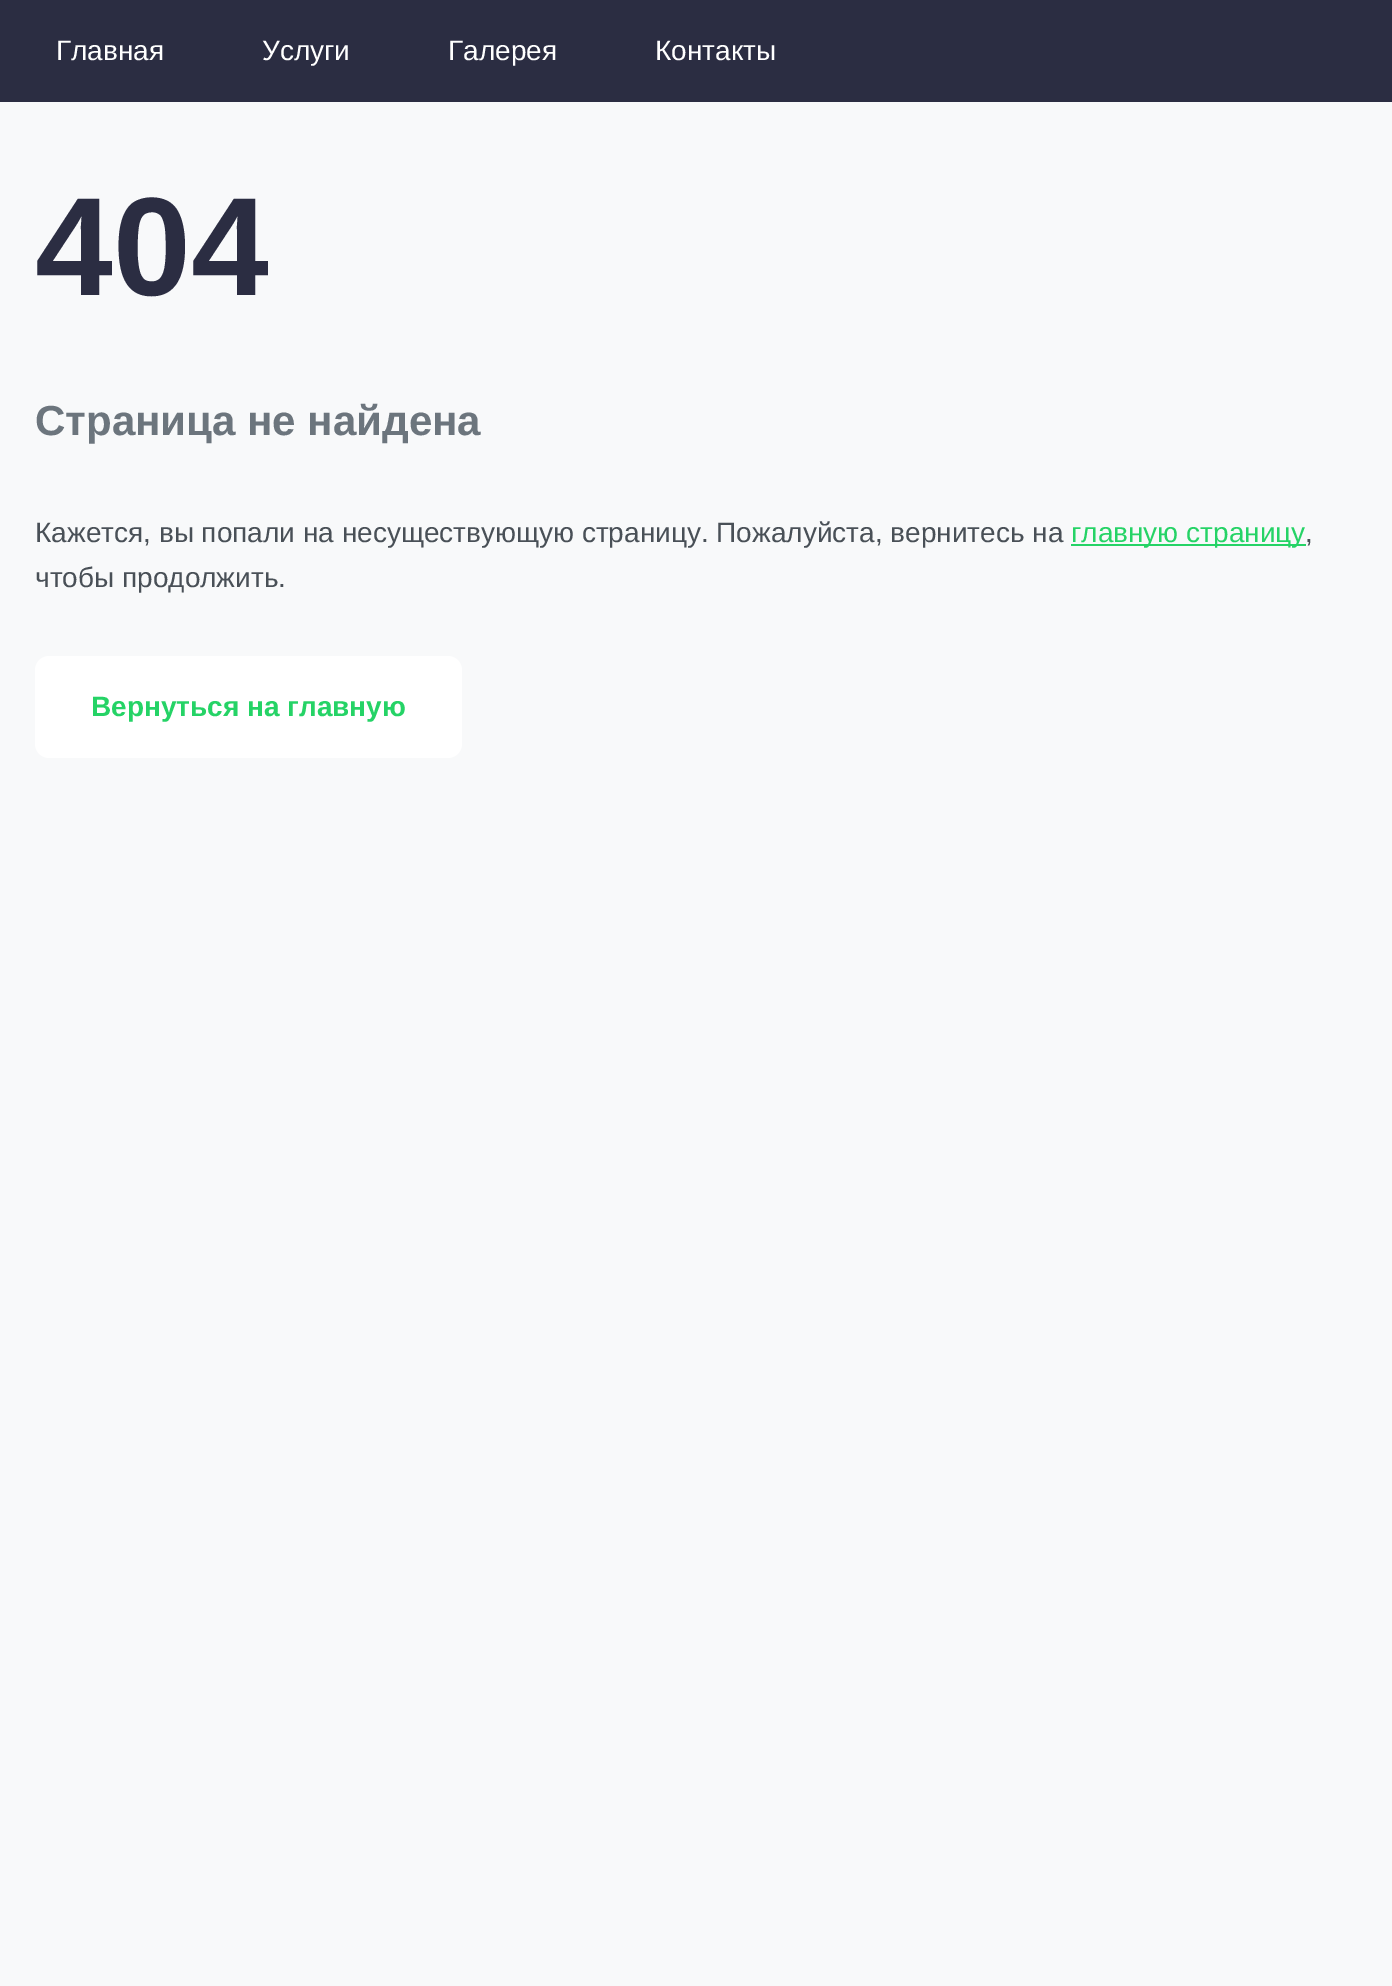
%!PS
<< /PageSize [1392 1986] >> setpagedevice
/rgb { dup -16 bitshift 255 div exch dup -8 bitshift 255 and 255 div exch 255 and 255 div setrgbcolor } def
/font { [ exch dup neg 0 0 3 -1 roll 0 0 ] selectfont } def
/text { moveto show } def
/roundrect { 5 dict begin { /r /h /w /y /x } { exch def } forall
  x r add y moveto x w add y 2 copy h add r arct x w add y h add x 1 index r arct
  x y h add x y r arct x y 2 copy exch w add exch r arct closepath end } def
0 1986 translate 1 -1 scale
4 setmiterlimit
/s1 { /LiberationSans-Regular 28 font 16#FFFFFF rgb } def
/s2 { /LiberationSans-Bold 140 font 16#2B2D42 rgb } def
/s3 { /LiberationSans-Bold 42 font 16#6C757D rgb } def
/s4 { /LiberationSans-Regular 28 font 16#495057 rgb } def
/s5 { /LiberationSans-Regular 28 font 16#25D366 rgb } def
/s6 { /LiberationSans-Bold 28 font 16#25D366 rgb } def
16#F8F9FA rgb
0 0 1392 1986 rectfill
16#2B2D42 rgb
0 0 1392 102 rectfill
s1
(Главная) 56 60 text
(Услуги) 262 60 text
(Галерея) 448 60 text
(Контакты) 655 60 text
s2
(404) 35 295 text
s3
(Страница не найдена) 35 435 text
s4
(Кажется, вы попали на несуществующую страницу. Пожалуйста, вернитесь на) 35 542 text
16#25D366 rgb
1071 544 235 2 rectfill
(главную страницу) 1071 542 text
s4
(,) 1305 542 text
(чтобы продолжить.) 35 587 text
16#FFFFFF rgb
35 656 427 102 14 roundrect fill
s6
(Вернуться на главную) 91 716 text
showpage
